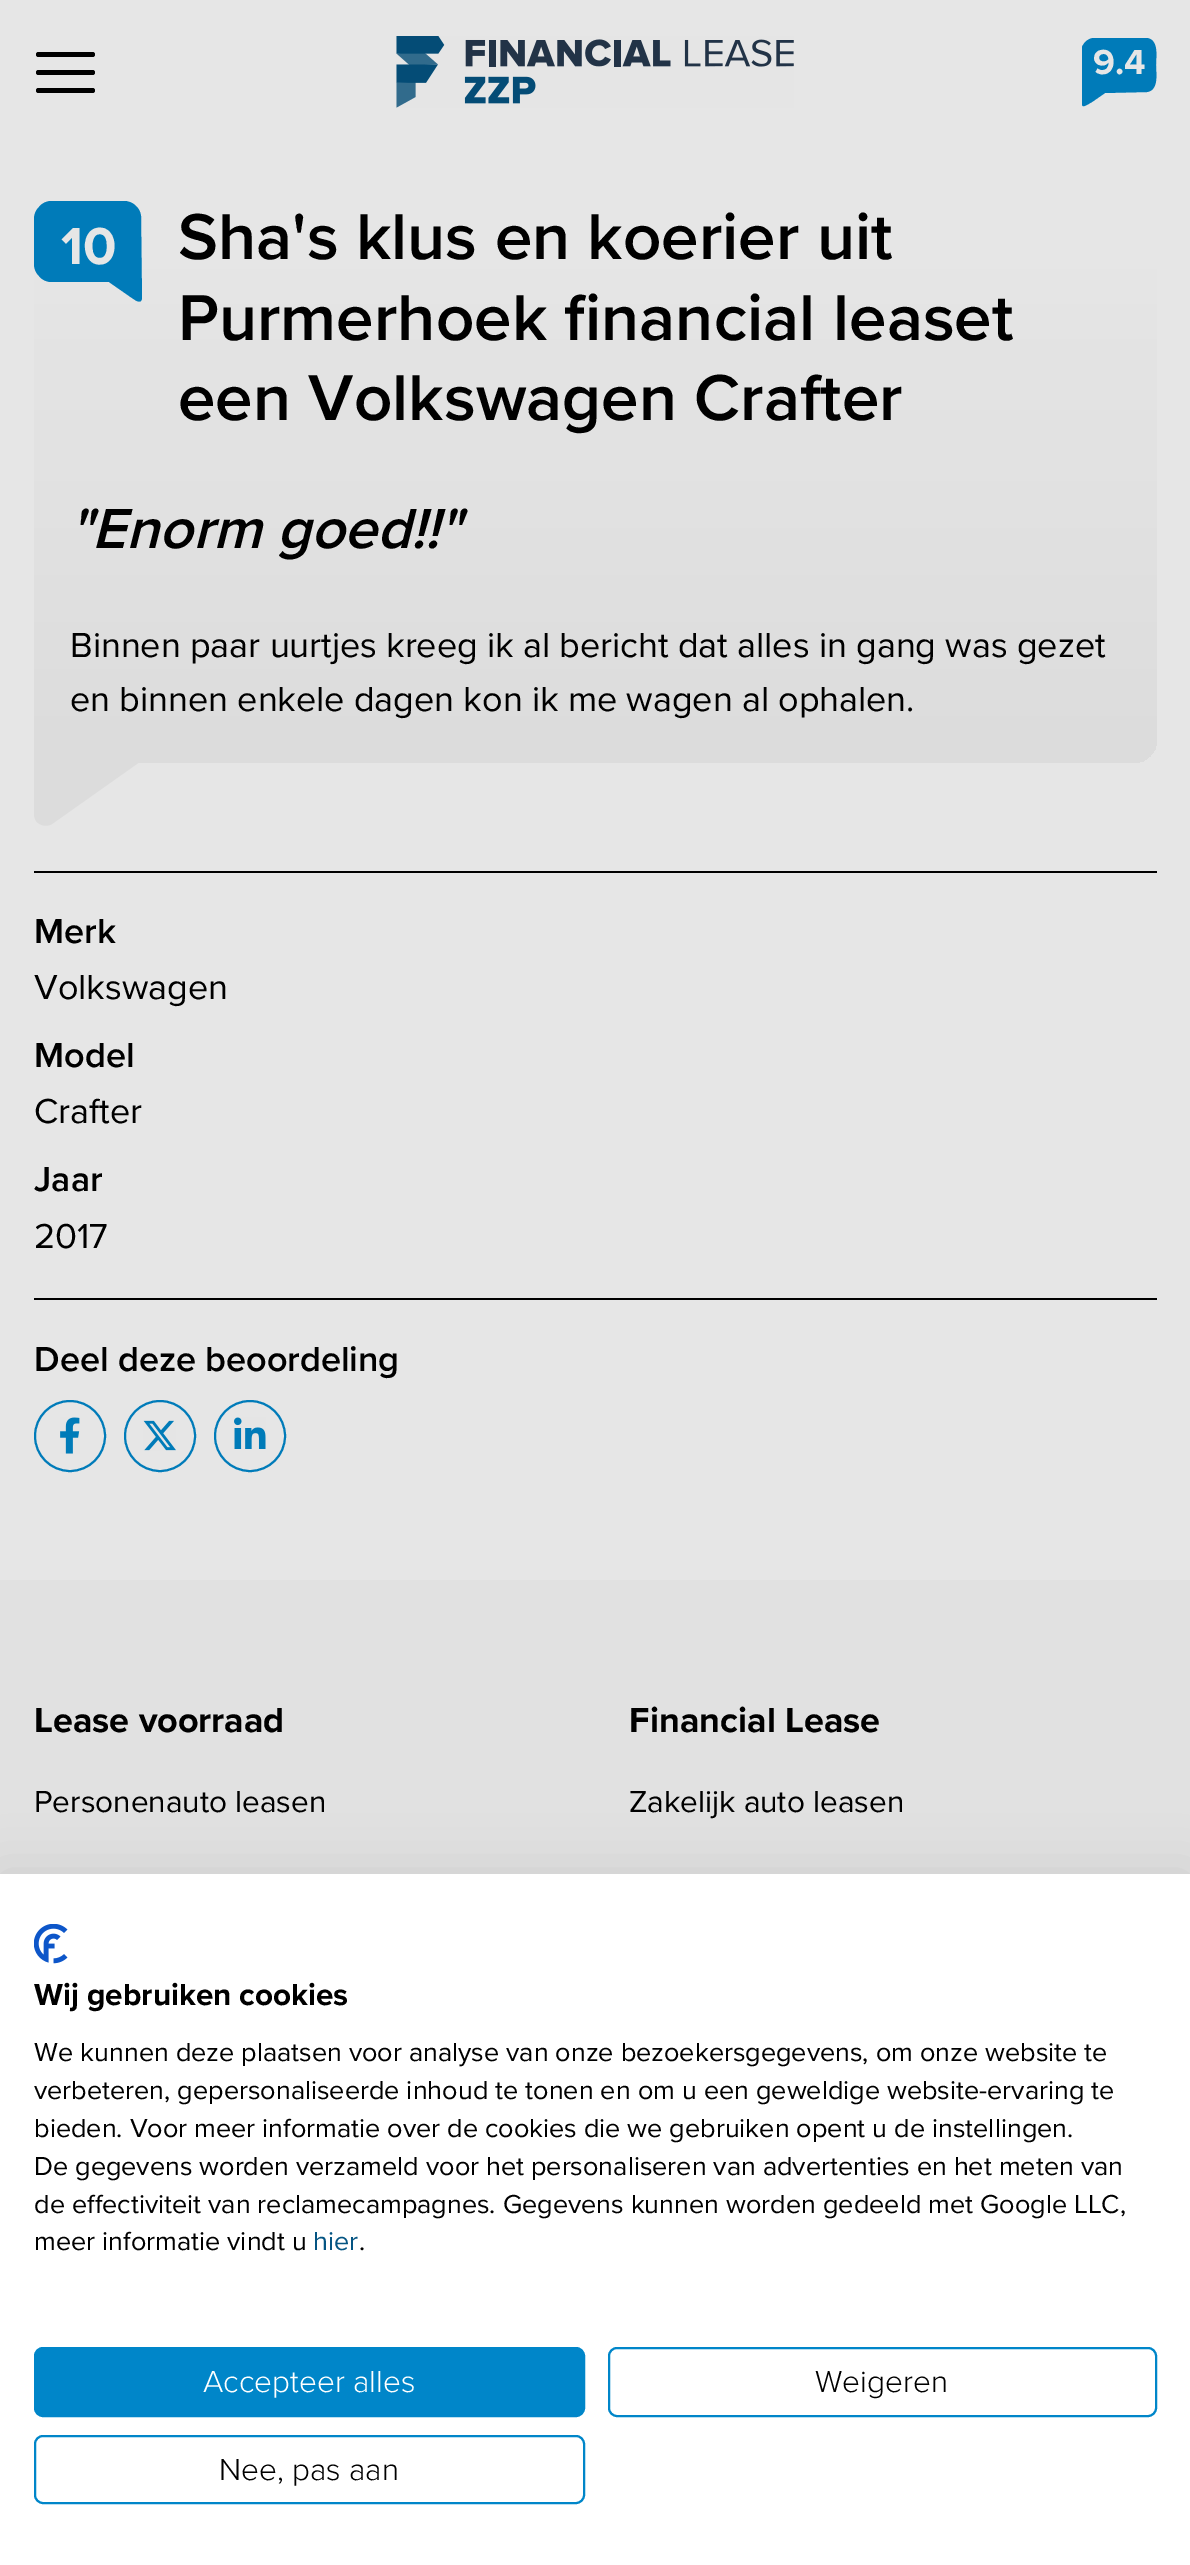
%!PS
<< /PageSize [1190 2565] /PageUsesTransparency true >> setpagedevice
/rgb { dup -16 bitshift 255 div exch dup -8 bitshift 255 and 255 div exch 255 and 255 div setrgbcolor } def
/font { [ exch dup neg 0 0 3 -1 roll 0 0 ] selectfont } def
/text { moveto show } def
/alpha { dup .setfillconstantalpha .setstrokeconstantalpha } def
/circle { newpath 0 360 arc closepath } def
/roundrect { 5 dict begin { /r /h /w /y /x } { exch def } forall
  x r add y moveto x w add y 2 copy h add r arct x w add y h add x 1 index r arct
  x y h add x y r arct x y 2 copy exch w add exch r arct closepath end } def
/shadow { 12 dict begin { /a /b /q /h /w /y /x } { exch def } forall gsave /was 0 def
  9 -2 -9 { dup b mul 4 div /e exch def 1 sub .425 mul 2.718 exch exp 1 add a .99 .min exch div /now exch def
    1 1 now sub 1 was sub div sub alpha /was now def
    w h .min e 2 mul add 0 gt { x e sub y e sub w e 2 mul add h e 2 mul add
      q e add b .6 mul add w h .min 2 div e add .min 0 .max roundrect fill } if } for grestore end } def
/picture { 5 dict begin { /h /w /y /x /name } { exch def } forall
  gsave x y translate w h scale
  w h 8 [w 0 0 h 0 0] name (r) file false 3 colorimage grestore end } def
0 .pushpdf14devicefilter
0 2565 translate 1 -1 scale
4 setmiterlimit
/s1 { /ProximaNova-Bold 36 font 16#E6E6E6 rgb } def
/s2 { /ProximaNova-Bold 54 font 16#E6E6E6 rgb } def
/s3 { /ProximaNova-SemiBold 67.3 font 16#000000 rgb } def
/s4 { /ProximaNova-SemiBoldItalic 58.5 font 16#000000 rgb } def
/s5 { /ProximaNova-Regular 36 font 16#000000 rgb } def
/s6 { /ProximaNova-SemiBold 36 font 16#000000 rgb } def
/s7 { /ProximaNova-Bold 36 font 16#000000 rgb } def
/s8 { /ProximaNova-Regular 31.5 font 16#000000 rgb } def
/s9 { /ProximaNova-Bold 31.5 font 16#000000 rgb } def
/s10 { /ProximaNova-Regular 27 font 16#000000 rgb } def
/s11 { /ProximaNova-Regular 27 font 16#055583 rgb } def
/s12 { /ProximaNova-Light 31.5 font 16#FFFFFF rgb } def
/s13 { /ProximaNova-Light 31.5 font 16#000000 rgb } def
16#E6E6E6 rgb
0 0 1190 2565 rectfill
16#000000 rgb
36 70 59 5 2.5 roundrect fill
36 52 59 5 2.5 roundrect fill
36 88 59 5 2.5 roundrect fill
(pic1.raw) 396 36 398 72 picture
16#007BB9 rgb
1094 38 moveto 1147 38 lineto 1159 40 1156 56 1156 65 curveto 1156 74 1159 90 1147 92 curveto 1105 93 lineto 1092 102 lineto 1088 104 1082 109 1082 104 curveto 1082 47 lineto 1084 42 1089 38 1094 38 curveto closepath eofill
s1
(9.4) 1093 74 text
gsave 34 198 moveto 1157 198 lineto 1157 740 lineto 1157 752.5 1146.5 763 1134 763 curveto 34 763 lineto closepath clip newpath
<< /ShadingType 2 /ColorSpace /DeviceRGB /Coords [595 763 595 198] /Extend [true true] /Function << /FunctionType 3 /Domain [0 1] /Functions [<< /FunctionType 2 /Domain [0 1] /C0 [0.863 0.863 0.863] /C1 [0.902 0.902 0.902] /N 1 >> << /FunctionType 2 /Domain [0 1] /C0 [0.902 0.902 0.902] /C1 [0.902 0.902 0.902] /N 1 >>] /Bounds [0.9] /Encode [0 1 0 1] >> >> shfill grestore
16#007BB9 rgb
124 201 moveto 51 201 lineto 47 201 42 203 39 207 curveto 36 210 34 214 34 219 curveto 34 264 lineto 34 269 36 273 39 276 curveto 42 280 47 282 51 282 curveto 109 282 lineto 132 298 lineto 134 299 138 303 141 301 curveto 142 299 lineto 141 216 lineto 140 207 132 201 124 201 curveto closepath eofill
s2
(10) 61 264 text
s3
(Sha's klus en koerier uit) 178 259 text
(Purmerhoek financial leaset) 178 340 text
(een Volkswagen Crafter) 178 420 text
s4
("Enorm goed!!") 70 548 text
s5
(Binnen paar uurtjes kreeg ik al bericht dat alles in gang was gezet) 70 657 text
(en binnen enkele dagen kon ik me wagen al ophalen.) 70 711 text
16#DCDCDC rgb
151 754 moveto 52 824 lineto 47 827 40 826 36 821 curveto 35 819 34 817 34 814 curveto 34 754 lineto closepath eofill
16#000000 rgb
34 871 1123 2 rectfill
s6
(Merk) 34 943 text
s5
(Volkswagen) 34 999 text
s6
(Model) 34 1067 text
s5
(Crafter) 34 1123 text
s6
(Jaar) 34 1191 text
s5
(2017) 34 1248 text
34 1298 1123 2 rectfill
s6
(Deel deze beoordeling) 34 1371 text
16#007BB9 rgb
2 setlinewidth
70 1436 35 circle stroke
(pic2.raw) 60 1417 20 37 picture
160 1436 35 circle stroke
(pic3.raw) 143 1420 33 31 picture
250 1436 35 circle stroke
(pic4.raw) 234 1417 32 32 picture
16#E1E1E1 rgb
0 1580 1190 294 rectfill
s7
(Lease voorraad) 34 1732 text
s8
(Personenauto leasen) 34 1812 text
s7
(Financial Lease) 629 1732 text
s8
(Zakelijk auto leasen) 629 1812 text
0 1874 1190 691 0 27 0.1 shadow
16#FFFFFF rgb
0 1874 1190 691 rectfill
(pic5.raw) 34 1924 34 40 picture
s9
(Wij gebruiken cookies) 34 2005 text
s10
(We kunnen deze plaatsen voor analyse van onze bezoekersgegevens, om onze website te) 34 2061 text
(verbeteren, gepersonaliseerde inhoud te tonen en om u een geweldige website-ervaring te) 34 2099 text
(bieden. Voor meer informatie over de cookies die we gebruiken opent u de instellingen.) 34 2137 text
(De gegevens worden verzameld voor het personaliseren van advertenties en het meten van) 34 2175 text
(de effectiviteit van reclamecampagnes. Gegevens kunnen worden gedeeld met Google LLC,) 34 2213 text
(meer informatie vindt u) 34 2250 text
s11
(hier) 313 2250 text
s10
(.) 359 2250 text
16#0086C9 rgb
35 2348 549 68 8 roundrect gsave fill grestore
stroke
s12
(Accepteer alles) 203 2392 text
16#0086C9 rgb
609 2348 547 68 8 roundrect stroke
s13
(Weigeren) 815 2392 text
16#0086C9 rgb
35 2436 549 67 8 roundrect stroke
s13
(Nee, pas aan) 219 2480 text
.poppdf14devicefilter showpage
